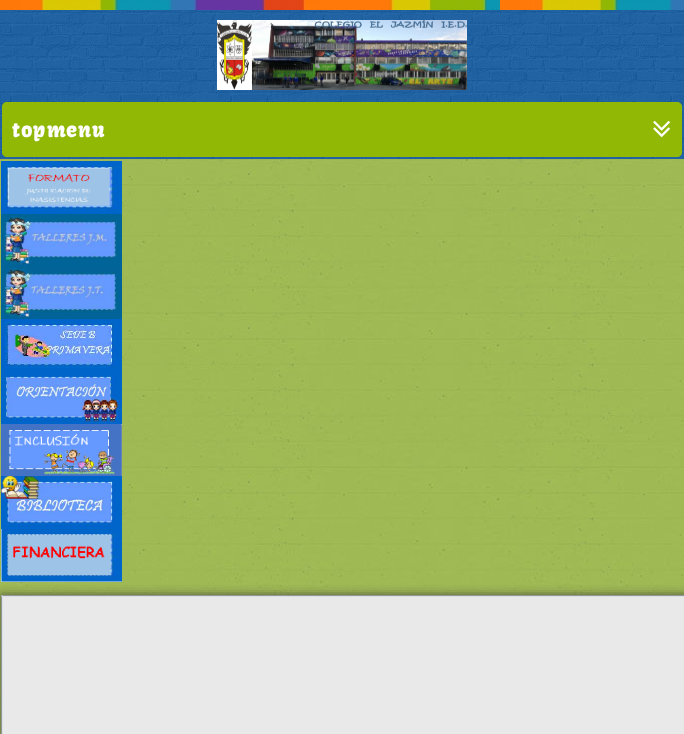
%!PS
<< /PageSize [684 734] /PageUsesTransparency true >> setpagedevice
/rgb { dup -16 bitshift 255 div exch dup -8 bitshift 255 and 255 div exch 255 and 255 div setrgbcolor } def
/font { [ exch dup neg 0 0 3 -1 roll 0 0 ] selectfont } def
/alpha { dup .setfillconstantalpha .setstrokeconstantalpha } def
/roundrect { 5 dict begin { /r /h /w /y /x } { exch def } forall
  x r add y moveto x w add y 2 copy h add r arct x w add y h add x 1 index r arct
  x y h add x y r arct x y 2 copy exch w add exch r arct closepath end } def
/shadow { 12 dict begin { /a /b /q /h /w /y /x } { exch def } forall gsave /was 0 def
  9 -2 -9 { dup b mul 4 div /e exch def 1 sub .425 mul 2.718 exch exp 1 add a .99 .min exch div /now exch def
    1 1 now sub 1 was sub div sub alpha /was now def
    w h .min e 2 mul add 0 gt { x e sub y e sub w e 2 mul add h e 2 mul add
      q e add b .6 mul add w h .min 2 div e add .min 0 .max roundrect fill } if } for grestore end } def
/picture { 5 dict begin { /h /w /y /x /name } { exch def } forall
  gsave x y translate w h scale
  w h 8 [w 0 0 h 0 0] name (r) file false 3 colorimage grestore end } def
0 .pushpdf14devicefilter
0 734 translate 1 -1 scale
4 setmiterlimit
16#FFFFFF rgb
0 0 684 734 rectfill
(pic1.raw) 0 10 684 149 picture
(pic2.raw) 0 0 684 10 picture
(pic3.raw) 217 20 250 70 picture
16#90B804 rgb
2 102 680 55 5 roundrect fill
/Kavoon-Regular 20 font
16#FFFFFF rgb
12 137 moveto 1 0 (topmenu) ashow
(pic4.raw) 653 121 17 17 picture
(pic5.raw) 0 159 684 575 picture
(pic6.raw) 1 161 121 53 picture
(pic7.raw) 1 214 121 52 picture
(pic8.raw) 1 266 121 53 picture
(pic9.raw) 1 319 121 52 picture
(pic10.raw) 1 371 121 53 picture
(pic11.raw) 1 424 121 52 picture
(pic12.raw) 1 476 121 53 picture
(pic13.raw) 1 529 121 53 picture
16#F4F4F4 rgb
1.5 595.5 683 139 rectstroke
16#333333 rgb
2 596 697 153 0 5 1 shadow
16#D9E1E7 rgb
2.5 596.5 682 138 rectstroke
16#E9E9E9 rgb
3 597 681 137 rectfill
.poppdf14devicefilter showpage
